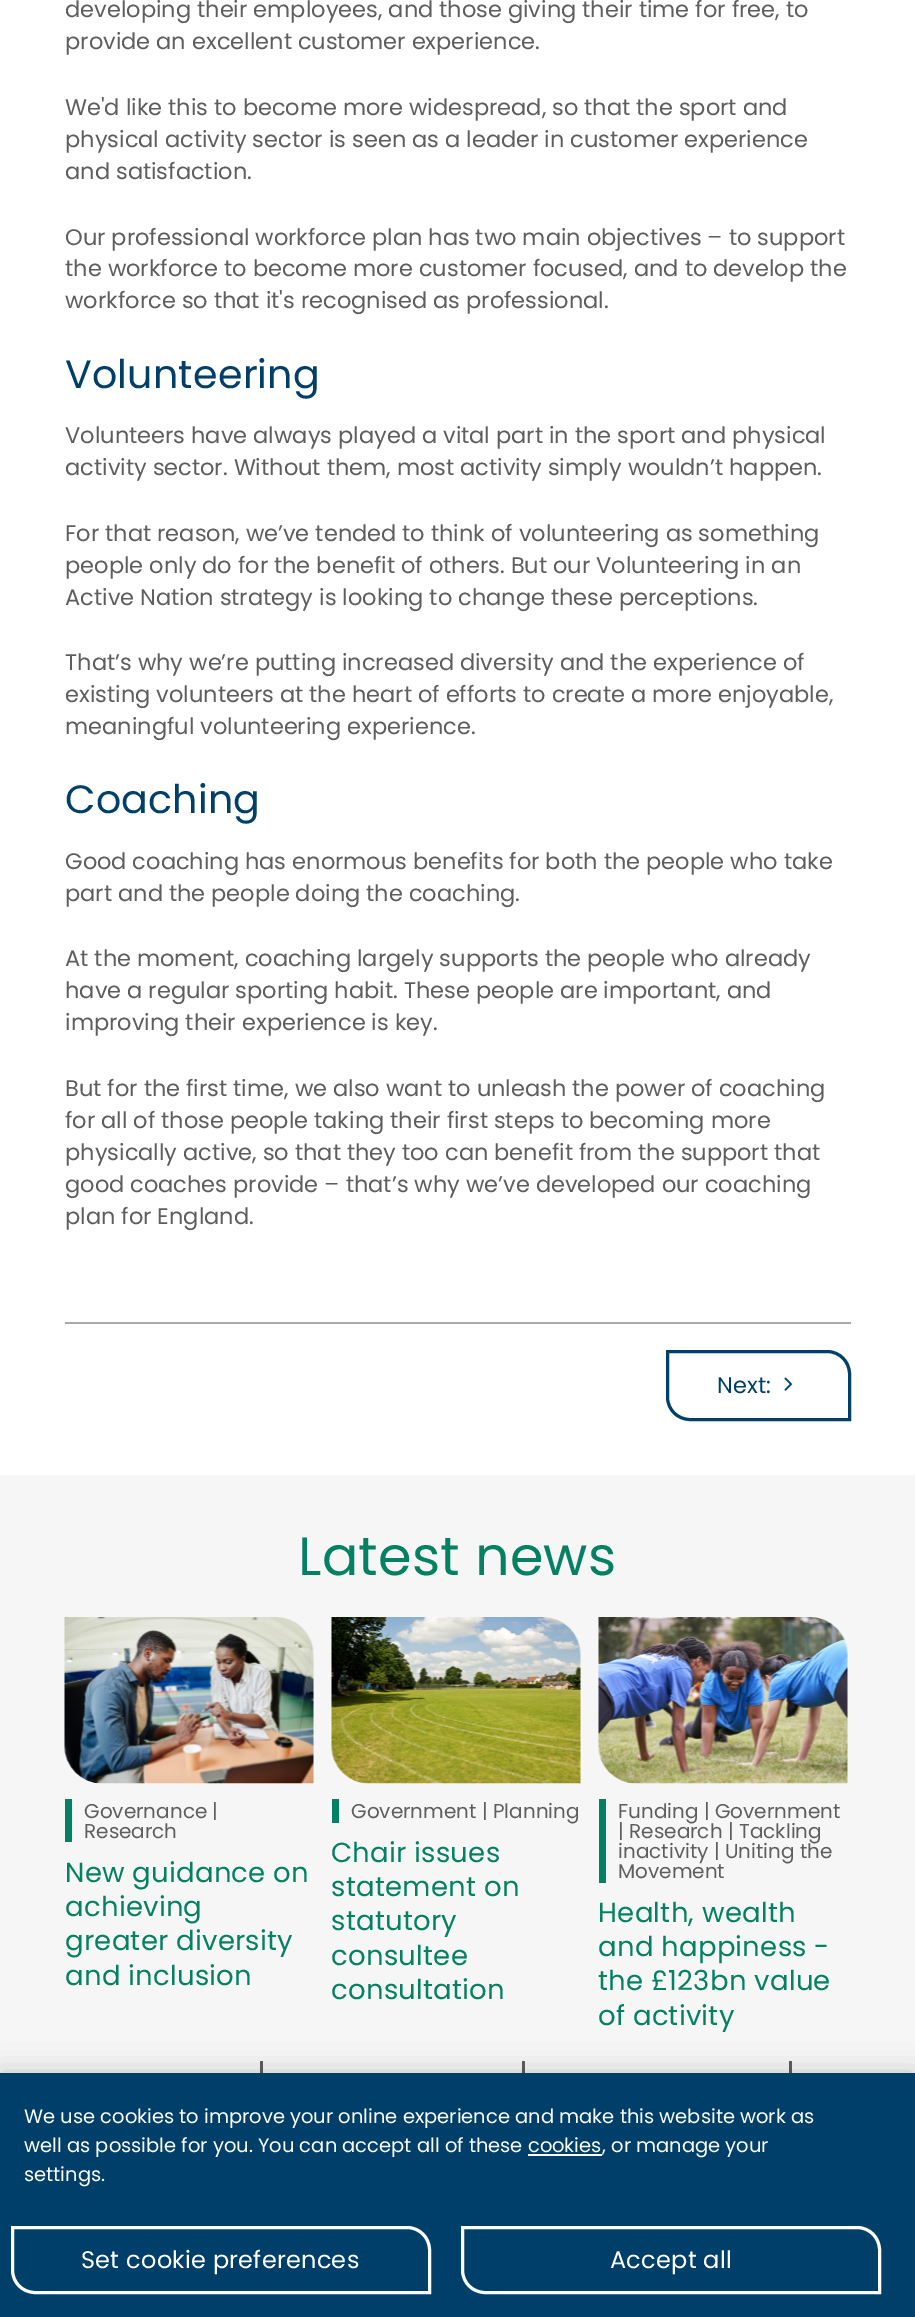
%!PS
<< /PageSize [915 2317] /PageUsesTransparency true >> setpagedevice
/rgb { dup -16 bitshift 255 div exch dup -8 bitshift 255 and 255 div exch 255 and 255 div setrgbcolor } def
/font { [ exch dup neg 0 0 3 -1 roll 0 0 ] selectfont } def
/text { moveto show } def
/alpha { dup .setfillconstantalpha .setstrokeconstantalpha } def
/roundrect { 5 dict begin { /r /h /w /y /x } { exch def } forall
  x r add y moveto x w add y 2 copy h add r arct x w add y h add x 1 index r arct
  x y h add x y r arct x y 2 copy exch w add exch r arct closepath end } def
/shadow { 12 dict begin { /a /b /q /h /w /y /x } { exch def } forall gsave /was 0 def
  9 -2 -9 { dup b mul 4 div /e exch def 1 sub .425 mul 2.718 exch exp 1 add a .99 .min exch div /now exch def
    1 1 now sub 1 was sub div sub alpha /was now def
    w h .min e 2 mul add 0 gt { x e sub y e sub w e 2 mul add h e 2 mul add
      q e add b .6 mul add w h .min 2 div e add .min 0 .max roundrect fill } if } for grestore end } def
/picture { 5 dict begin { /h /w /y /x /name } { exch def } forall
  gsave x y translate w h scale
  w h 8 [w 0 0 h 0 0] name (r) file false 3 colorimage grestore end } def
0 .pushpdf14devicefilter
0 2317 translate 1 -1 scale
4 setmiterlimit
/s1 { /Poppins-Regular 22.5 font 16#5E5E5E rgb } def
/s2 { /Poppins-Regular 22.5 font 16#003F69 rgb } def
/s3 { /Poppins-Regular 20 font 16#5E5E5E rgb } def
/s4 { /Poppins-Regular 19.5 font 16#FFFFFF rgb } def
16#FFFFFF rgb
0 0 915 2317 rectfill
s1
(developing their employees, and those giving their time for free, to) 65 17 text
(provide an excellent customer experience.) 65 49 text
(We'd like this to become more widespread, so that the sport and) 65 115 text
(physical activity sector is seen as a leader in customer experience) 65 147 text
(and satisfaction.) 65 179 text
(Our professional workforce plan has two main objectives – to support) 65 245 text
(the workforce to become more customer focused, and to develop the) 65 276 text
(workforce so that it's recognised as professional.) 65 308 text
/Poppins-Regular 39.5 font
16#003F69 rgb
65 388 moveto 0.25 0 (Volunteering) ashow
s1
(Volunteers have always played a vital part in the sport and physical) 65 443 text
(activity sector. Without them, most activity simply wouldn’t happen.) 65 475 text
(For that reason, we’ve tended to think of volunteering as something) 65 541 text
(people only do for the benefit of others. But our Volunteering in an) 65 573 text
(Active Nation strategy is looking to change these perceptions.) 65 605 text
(That’s why we’re putting increased diversity and the experience of) 65 670 text
(existing volunteers at the heart of efforts to create a more enjoyable,) 65 702 text
(meaningful volunteering experience.) 65 734 text
/Poppins-Regular 39.5 font
16#003F69 rgb
65 813 moveto 0.25 0 (Coaching) ashow
s1
(Good coaching has enormous benefits for both the people who take) 65 869 text
(part and the people doing the coaching.) 65 901 text
(At the moment, coaching largely supports the people who already) 65 966 text
(have a regular sporting habit. These people are important, and) 65 998 text
(improving their experience is key.) 65 1030 text
(But for the first time, we also want to unleash the power of coaching) 65 1096 text
(for all of those people taking their first steps to becoming more) 65 1128 text
(physically active, so that they too can benefit from the support that) 65 1160 text
(good coaches provide – that’s why we’ve developed our coaching) 65 1192 text
(plan for England.) 65 1224 text
16#AAAAAA rgb
65 1322 786 2 rectfill
16#003F69 rgb
3 setlinewidth
667.5 1351.5 moveto 827 1351.5 lineto 839.5 1351.5 849.5 1361.5 849.5 1374 curveto 849.5 1419.5 lineto 690 1419.5 lineto 677.5 1419.5 667.5 1409.5 667.5 1397 curveto closepath stroke
(Next:) 717 1393 text
(pic1.raw) 784 1377 8 14 picture
16#F6F6F6 rgb
0 1475 915 598 rectfill
/Poppins-Regular 54 font
16#048062 rgb
298 1575 moveto 0.25 0 (Latest news) ashow
(pic2.raw) 64 1617 250 167 picture
65 1799 7 43 rectfill
s3
(Governance |) 84 1818 text
(Research) 84 1838 text
/Poppins-Regular 27.5 font
16#048062 rgb
65 1882 moveto 0.25 0 (New guidance on) ashow
65 1916 moveto 0.25 0 (achieving) ashow
65 1950 moveto 0.25 0 (greater diversity) ashow
65 1985 moveto 0.25 0 (and inclusion) ashow
16#5E5E5E rgb
260 2061 3 12 rectfill
(pic3.raw) 331 1617 250 167 picture
16#048062 rgb
332 1799 7 24 rectfill
s3
(Government | Planning) 351 1818 text
/Poppins-Regular 27.5 font
16#048062 rgb
331 1862 moveto 0.25 0 (Chair issues) ashow
331 1896 moveto 0.25 0 (statement on) ashow
331 1930 moveto 0.25 0 (statutory) ashow
331 1965 moveto 0.25 0 (consultee) ashow
331 1999 moveto 0.25 0 (consultation) ashow
16#5E5E5E rgb
522 2061 3 12 rectfill
(pic4.raw) 598 1617 250 167 picture
16#048062 rgb
599 1799 7 84 rectfill
s3
(Funding | Government) 618 1818 text
(| Research | Tackling) 618 1838 text
(inactivity | Uniting the) 618 1858 text
(Movement) 618 1878 text
/Poppins-Regular 27.5 font
16#048062 rgb
598 1922 moveto 0.25 0 (Health, wealth) ashow
598 1956 moveto 0.25 0 (and happiness -) ashow
598 1990 moveto 0.25 0 (the £123bn value) ashow
598 2025 moveto 0.25 0 (of activity) ashow
16#5E5E5E rgb
789 2061 3 12 rectfill
16#000000 rgb
0 2073 915 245 0 13.5 0.2 shadow
16#003F69 rgb
0 2073 915 244 rectfill
s4
(We use cookies to improve your online experience and make this website work as) 24 2123 text
(well as possible for you. You can accept all of these cookies) 24 2152 text
528 2154 74 2 rectfill
(, or manage your) 602 2152 text
(settings.) 24 2181 text
12.5 2227.5 moveto 407 2227.5 lineto 419.5 2227.5 429.5 2237.5 429.5 2250 curveto 429.5 2292.5 lineto 35 2292.5 lineto 22.5 2292.5 12.5 2282.5 12.5 2270 curveto closepath stroke
/Poppins-Regular 24 font
81 2268 moveto 0.25 0 (Set cookie preferences) ashow
462.5 2227.5 moveto 857 2227.5 lineto 869.5 2227.5 879.5 2237.5 879.5 2250 curveto 879.5 2292.5 lineto 485 2292.5 lineto 472.5 2292.5 462.5 2282.5 462.5 2270 curveto closepath stroke
610 2268 moveto 0.25 0 (Accept all) ashow
.poppdf14devicefilter showpage
